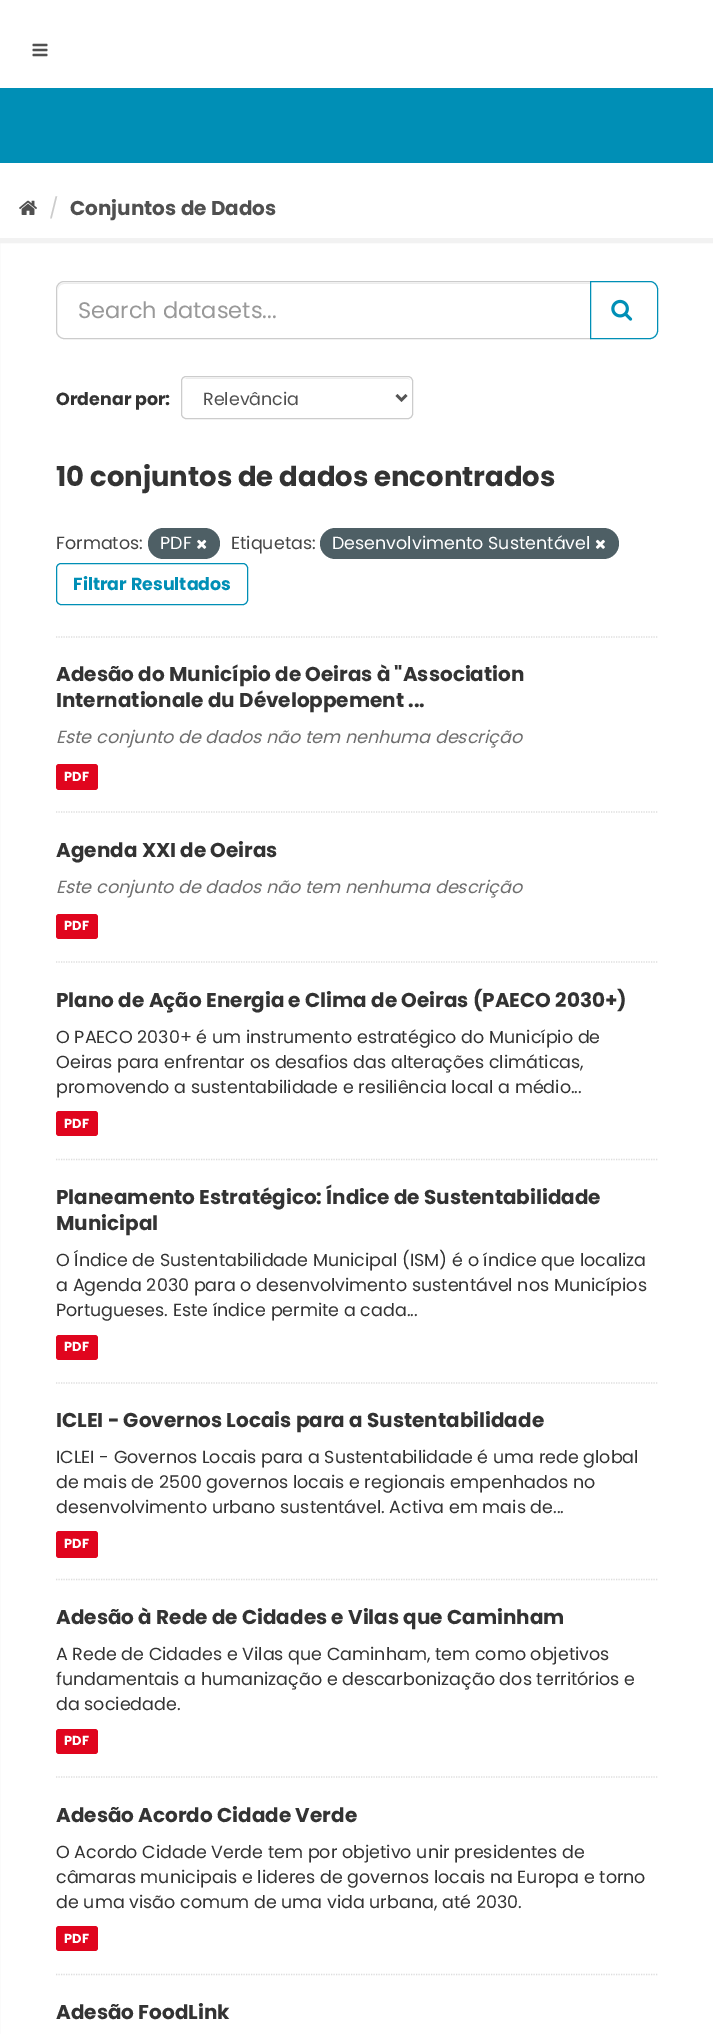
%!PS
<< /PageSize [713 2034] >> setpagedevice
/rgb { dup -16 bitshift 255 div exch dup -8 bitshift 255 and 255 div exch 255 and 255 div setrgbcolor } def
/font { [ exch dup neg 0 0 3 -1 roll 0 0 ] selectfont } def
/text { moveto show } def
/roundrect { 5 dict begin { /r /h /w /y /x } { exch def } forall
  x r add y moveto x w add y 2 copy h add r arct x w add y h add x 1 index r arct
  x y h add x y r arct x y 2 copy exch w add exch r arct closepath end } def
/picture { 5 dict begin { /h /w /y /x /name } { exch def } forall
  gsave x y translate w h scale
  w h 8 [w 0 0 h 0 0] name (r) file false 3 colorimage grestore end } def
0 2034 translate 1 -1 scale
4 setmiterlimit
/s1 { /Poppins-Regular 20 font 16#CCCCCC rgb } def
/s2 { /Poppins-Bold 20 font 16#505050 rgb } def
/s3 { /Poppins-Regular 22.5 font 16#999999 rgb } def
/s4 { /Poppins-Bold 17.5 font 16#333333 rgb } def
/s5 { /Poppins-Regular 17.5 font 16#505050 rgb } def
/s6 { /Poppins-Bold 27.5 font 16#333333 rgb } def
/s7 { /Poppins-Regular 17.5 font 16#444444 rgb } def
/s8 { /Poppins-Regular 17.5 font 16#FFFFFF rgb } def
/s9 { /Poppins-Bold 17.5 font 16#008FB6 rgb } def
/s10 { /Poppins-Bold 20 font 16#333333 rgb } def
/s11 { /Poppins-Italic 17.5 font 16#6E6E6E rgb } def
/s12 { /Poppins-Bold 13 font 16#FFFFFF rgb } def
/s13 { /Poppins-Regular 17.5 font 16#333333 rgb } def
16#FFFFFF rgb
0 0 713 2034 rectfill
16#008FB6 rgb
0 88 713 75 rectfill
(pic1.raw) 32 43 16 14 picture
(pic2.raw) 19 200 18 15 picture
s1
(/) 49 215 text
s2
(Conjuntos de Dados) 70 215 text
16#F2F2F2 rgb
5 setlinewidth
-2.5 240.5 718 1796 rectstroke
16#DDDDDD rgb
1.2 setlinewidth
[1.25 1.25] 0 setdash
56 637 moveto 657.5 637 lineto stroke
16#ECECEC rgb
64 284 moveto 590 284 lineto 590 283 lineto 64 283 lineto 61 283 58 286 58 289 curveto 58 290 lineto 58 287 60 284 64 284 curveto closepath fill
16#CCCCCC rgb
1 setlinewidth
[] 0 setdash
64 281.5 moveto 590.5 281.5 lineto 590.5 338.5 lineto 64 338.5 lineto 60 338.5 56.5 335 56.5 331 curveto 56.5 289 lineto 56.5 285 60 281.5 64 281.5 curveto closepath stroke
s3
(Search datasets...) 78 318 text
16#FFFFFF rgb
590.5 281.5 moveto 650 281.5 lineto 654 281.5 657.5 285 657.5 289 curveto 657.5 331 lineto 657.5 335 654 338.5 650 338.5 curveto 590.5 338.5 lineto closepath gsave fill grestore
16#008FB6 rgb
stroke
(pic3.raw) 611 299 22 22 picture
s4
(Ordenar por:) 56 405 text
16#ECECEC rgb
186 379 moveto 408 379 lineto 409 379 410 379 410 380 curveto 410 379 408 378 407 378 curveto 187 378 lineto 186 378 185 379 184 379 curveto closepath fill
16#CCCCCC rgb
181.5 376.5 231 42 4.5 roundrect stroke
16#555555 rgb
2.5 setlinewidth
396.5 395 moveto 401.5 400 lineto 406.5 395 lineto stroke
s5
(Relevância) 203 405 text
s6
(10 conjuntos de dados encontrados) 56 486 text
s7
(Formatos:) 56 549 text
16#4E5F65 rgb
148 528 72 31 15.5 roundrect fill
s8
(PDF) 160 549 text
(pic4.raw) 197 539 10 10 picture
s7
(Etiquetas:) 231 549 text
16#4E5F65 rgb
320 528 299 31 15.5 roundrect fill
s8
(Desenvolvimento Sustentável) 332 549 text
(pic5.raw) 595 539 10 10 picture
16#008FB6 rgb
1 setlinewidth
56.5 563.5 191 41 4.5 roundrect stroke
s9
(Filtrar Resultados) 73 590 text
16#DDDDDD rgb
1.2 setlinewidth
[1.25 1.25] 0 setdash
56 812 moveto 657.5 812 lineto stroke
s10
(Adesão do Município de Oeiras à "Association) 56 681 text
(Internationale du Développement ...) 56 707 text
s11
(Este conjunto de dados não tem nenhuma descrição) 56 743 text
16#E0051E rgb
56 764 42 26 3 roundrect fill
s12
(PDF) 64 781 text
16#DDDDDD rgb
56 962 moveto 657.5 962 lineto stroke
s10
(Agenda XXI de Oeiras) 56 857 text
s11
(Este conjunto de dados não tem nenhuma descrição) 56 893 text
16#E0051E rgb
56 914 42 25 3 roundrect fill
s12
(PDF) 64 930 text
16#DDDDDD rgb
56 1159.5 moveto 657.5 1159.5 lineto stroke
s10
(Plano de Ação Energia e Clima de Oeiras \(PAECO 2030+\)) 56 1007 text
s13
(O PAECO 2030+ é um instrumento estratégico do Município de) 56 1043 text
(Oeiras para enfrentar os desafios das alterações climáticas,) 56 1068 text
(promovendo a sustentabilidade e resiliência local a médio...) 56 1093 text
16#E0051E rgb
56 1111 42 25 3 roundrect fill
s12
(PDF) 64 1128 text
16#DDDDDD rgb
56 1383 moveto 657.5 1383 lineto stroke
s10
(Planeamento Estratégico: Índice de Sustentabilidade) 56 1204 text
(Municipal) 56 1230 text
s13
(O Índice de Sustentabilidade Municipal \(ISM\) é o índice que localiza) 56 1266 text
(a Agenda 2030 para o desenvolvimento sustentável nos Municípios) 56 1291 text
(Portugueses. Este índice permite a cada...) 56 1316 text
16#E0051E rgb
56 1335 42 25 3 roundrect fill
s12
(PDF) 64 1351 text
16#DDDDDD rgb
56 1579.5 moveto 657.5 1579.5 lineto stroke
s10
(ICLEI - Governos Locais para a Sustentabilidade) 56 1427 text
s13
(ICLEI - Governos Locais para a Sustentabilidade é uma rede global) 56 1463 text
(de mais de 2500 governos locais e regionais empenhados no) 56 1488 text
(desenvolvimento urbano sustentável. Activa em mais de...) 56 1513 text
16#E0051E rgb
56 1531 42 27 3 roundrect fill
s12
(PDF) 64 1548 text
16#DDDDDD rgb
56 1777 moveto 657.5 1777 lineto stroke
s10
(Adesão à Rede de Cidades e Vilas que Caminham) 56 1624 text
s13
(A Rede de Cidades e Vilas que Caminham, tem como objetivos) 56 1660 text
(fundamentais a humanização e descarbonização dos territórios e) 56 1685 text
(da sociedade.) 56 1710 text
16#E0051E rgb
56 1729 42 25 3 roundrect fill
s12
(PDF) 64 1745 text
16#DDDDDD rgb
56 1974.5 moveto 657.5 1974.5 lineto stroke
s10
(Adesão Acordo Cidade Verde) 56 1822 text
s13
(O Acordo Cidade Verde tem por objetivo unir presidentes de) 56 1858 text
(câmaras municipais e lideres de governos locais na Europa e torno) 56 1883 text
(de uma visão comum de uma vida urbana, até 2030.) 56 1908 text
16#E0051E rgb
56 1926 42 25 3 roundrect fill
s12
(PDF) 64 1943 text
s10
(Adesão FoodLink) 56 2019 text
showpage
